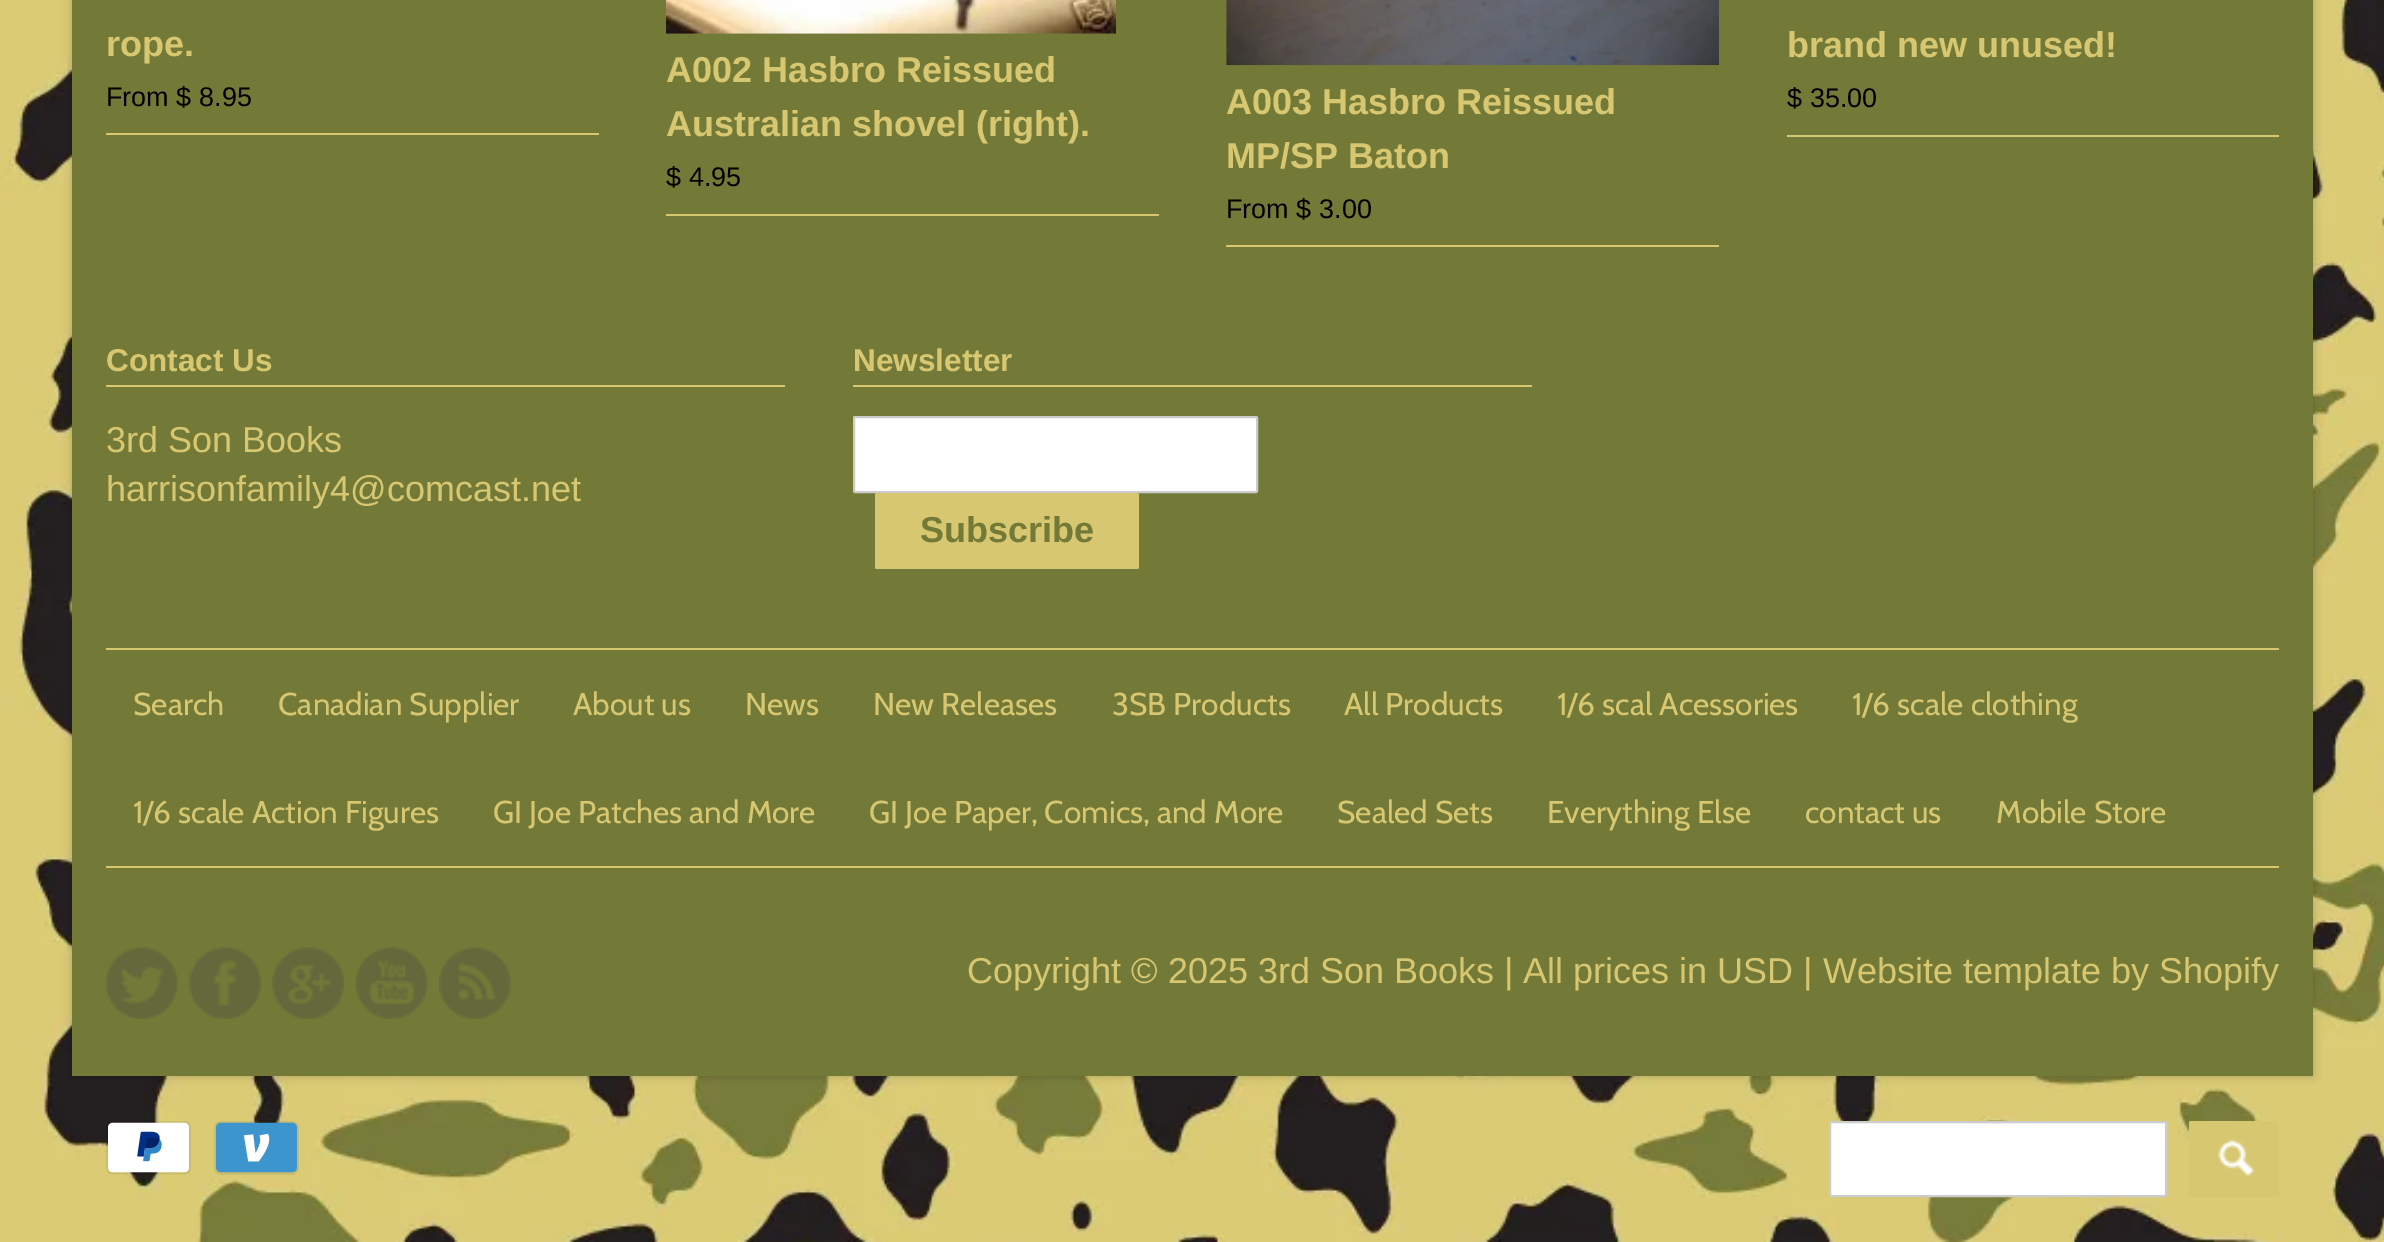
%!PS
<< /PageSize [2384 1242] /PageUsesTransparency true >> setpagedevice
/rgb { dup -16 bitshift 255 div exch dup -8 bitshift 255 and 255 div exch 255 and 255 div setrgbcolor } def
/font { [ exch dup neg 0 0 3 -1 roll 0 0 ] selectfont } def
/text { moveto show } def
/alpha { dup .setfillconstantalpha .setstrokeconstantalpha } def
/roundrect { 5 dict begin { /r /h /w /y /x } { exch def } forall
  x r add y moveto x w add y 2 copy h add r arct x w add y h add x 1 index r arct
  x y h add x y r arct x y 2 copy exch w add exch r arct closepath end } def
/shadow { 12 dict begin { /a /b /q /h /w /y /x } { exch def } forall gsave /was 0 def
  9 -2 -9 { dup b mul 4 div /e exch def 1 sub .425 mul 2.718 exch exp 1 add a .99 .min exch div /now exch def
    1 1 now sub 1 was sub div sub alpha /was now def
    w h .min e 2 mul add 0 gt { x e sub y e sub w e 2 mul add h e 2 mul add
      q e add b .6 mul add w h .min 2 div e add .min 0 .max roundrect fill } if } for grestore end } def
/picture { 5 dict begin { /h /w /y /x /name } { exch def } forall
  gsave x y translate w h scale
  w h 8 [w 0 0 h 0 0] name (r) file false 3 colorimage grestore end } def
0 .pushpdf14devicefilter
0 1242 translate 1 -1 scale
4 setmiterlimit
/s1 { /LiberationSans-Bold 36 font 16#D6C770 rgb } def
/s2 { /LiberationSans-Regular 27 font 16#000000 rgb } def
/s3 { /LiberationSans-Bold 31.5 font 16#D6C770 rgb } def
/s4 { /LiberationSans-Regular 36 font 16#D6C770 rgb } def
/s5 { /LiberationSans-Bold 36 font 16#737A38 rgb } def
/s6 { /Cabin-Regular 31.5 font 16#D6C770 rgb } def
16#FFFFFF rgb
0 0 2384 1242 rectfill
(pic1.raw) 0 1197 2384 45 picture
(pic2.raw) 0 0 2384 1197 picture
16#000000 rgb
72 -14 2241 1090 0 4.5 0.2 shadow
16#737A38 rgb
72 0 2241 1076 rectfill
16#D6C770 rgb
106 133 493 2 rectfill
s1
(rope.) 106 56 text
s2
(From $ 8.95) 106 106 text
16#D6C770 rgb
666 214 493 2 rectfill
(pic3.raw) 666 0 450 34 picture
s1
(A002 Hasbro Reissued) 666 82 text
(Australian shovel \(right\).) 666 136 text
s2
($ 4.95) 666 186 text
16#D6C770 rgb
1226 245 493 2 rectfill
(pic4.raw) 1226 0 493 66 picture
s1
(A003 Hasbro Reissued) 1226 114 text
(MP/SP Baton) 1226 168 text
s2
(From $ 3.00) 1226 218 text
16#D6C770 rgb
1787 135 492 2 rectfill
s1
(brand new unused!) 1787 57 text
s2
($ 35.00) 1787 107 text
16#D6C770 rgb
106 385 679 2 rectfill
s3
(Contact Us) 106 371 text
s4
(3rd Son Books) 106 452 text
(harrisonfamily4@comcast.net) 106 501 text
853 385 679 2 rectfill
s3
(Newsletter) 853 371 text
16#FFFFFF rgb
854 417 403 75 1 roundrect gsave fill grestore
16#CCCCCC rgb
2 setlinewidth
stroke
16#D6C770 rgb
875 493 264 76 2 roundrect fill
s5
(Subscribe) 920 542 text
16#D6C770 rgb
106 648 2173 2 rectfill
106 866 2173 2 rectfill
s6
(Search) 133 715 text
(Canadian Supplier) 278 715 text
(About us) 573 715 text
(News) 745 715 text
(New Releases) 873 715 text
(3SB Products) 1112 715 text
(All Products) 1344 715 text
(1/6 scal Acessories) 1557 715 text
(1/6 scale clothing) 1852 715 text
(1/6 scale Action Figures) 133 823 text
(GI Joe Patches and More) 493 823 text
(GI Joe Paper, Comics, and More) 869 823 text
(Sealed Sets) 1337 823 text
(Everything Else) 1547 823 text
(contact us) 1805 823 text
(Mobile Store) 1996 823 text
(pic5.raw) 106 947 72 72 picture
(pic6.raw) 189 947 72 72 picture
(pic7.raw) 272 947 72 72 picture
(pic8.raw) 355 947 73 72 picture
(pic9.raw) 439 947 72 72 picture
s4
(Copyright © 2025 3rd Son Books | All prices in USD | Website template by Shopify) 967 983 text
(pic10.raw) 106 1121 85 54 picture
(pic11.raw) 214 1121 85 54 picture
16#FFFFFF rgb
1830 1122 336 74 1 roundrect gsave fill grestore
16#CCCCCC rgb
stroke
16#D6C770 rgb
2189 1121 90 76 2 roundrect fill
(pic12.raw) 2217 1140 38 38 picture
.poppdf14devicefilter showpage
